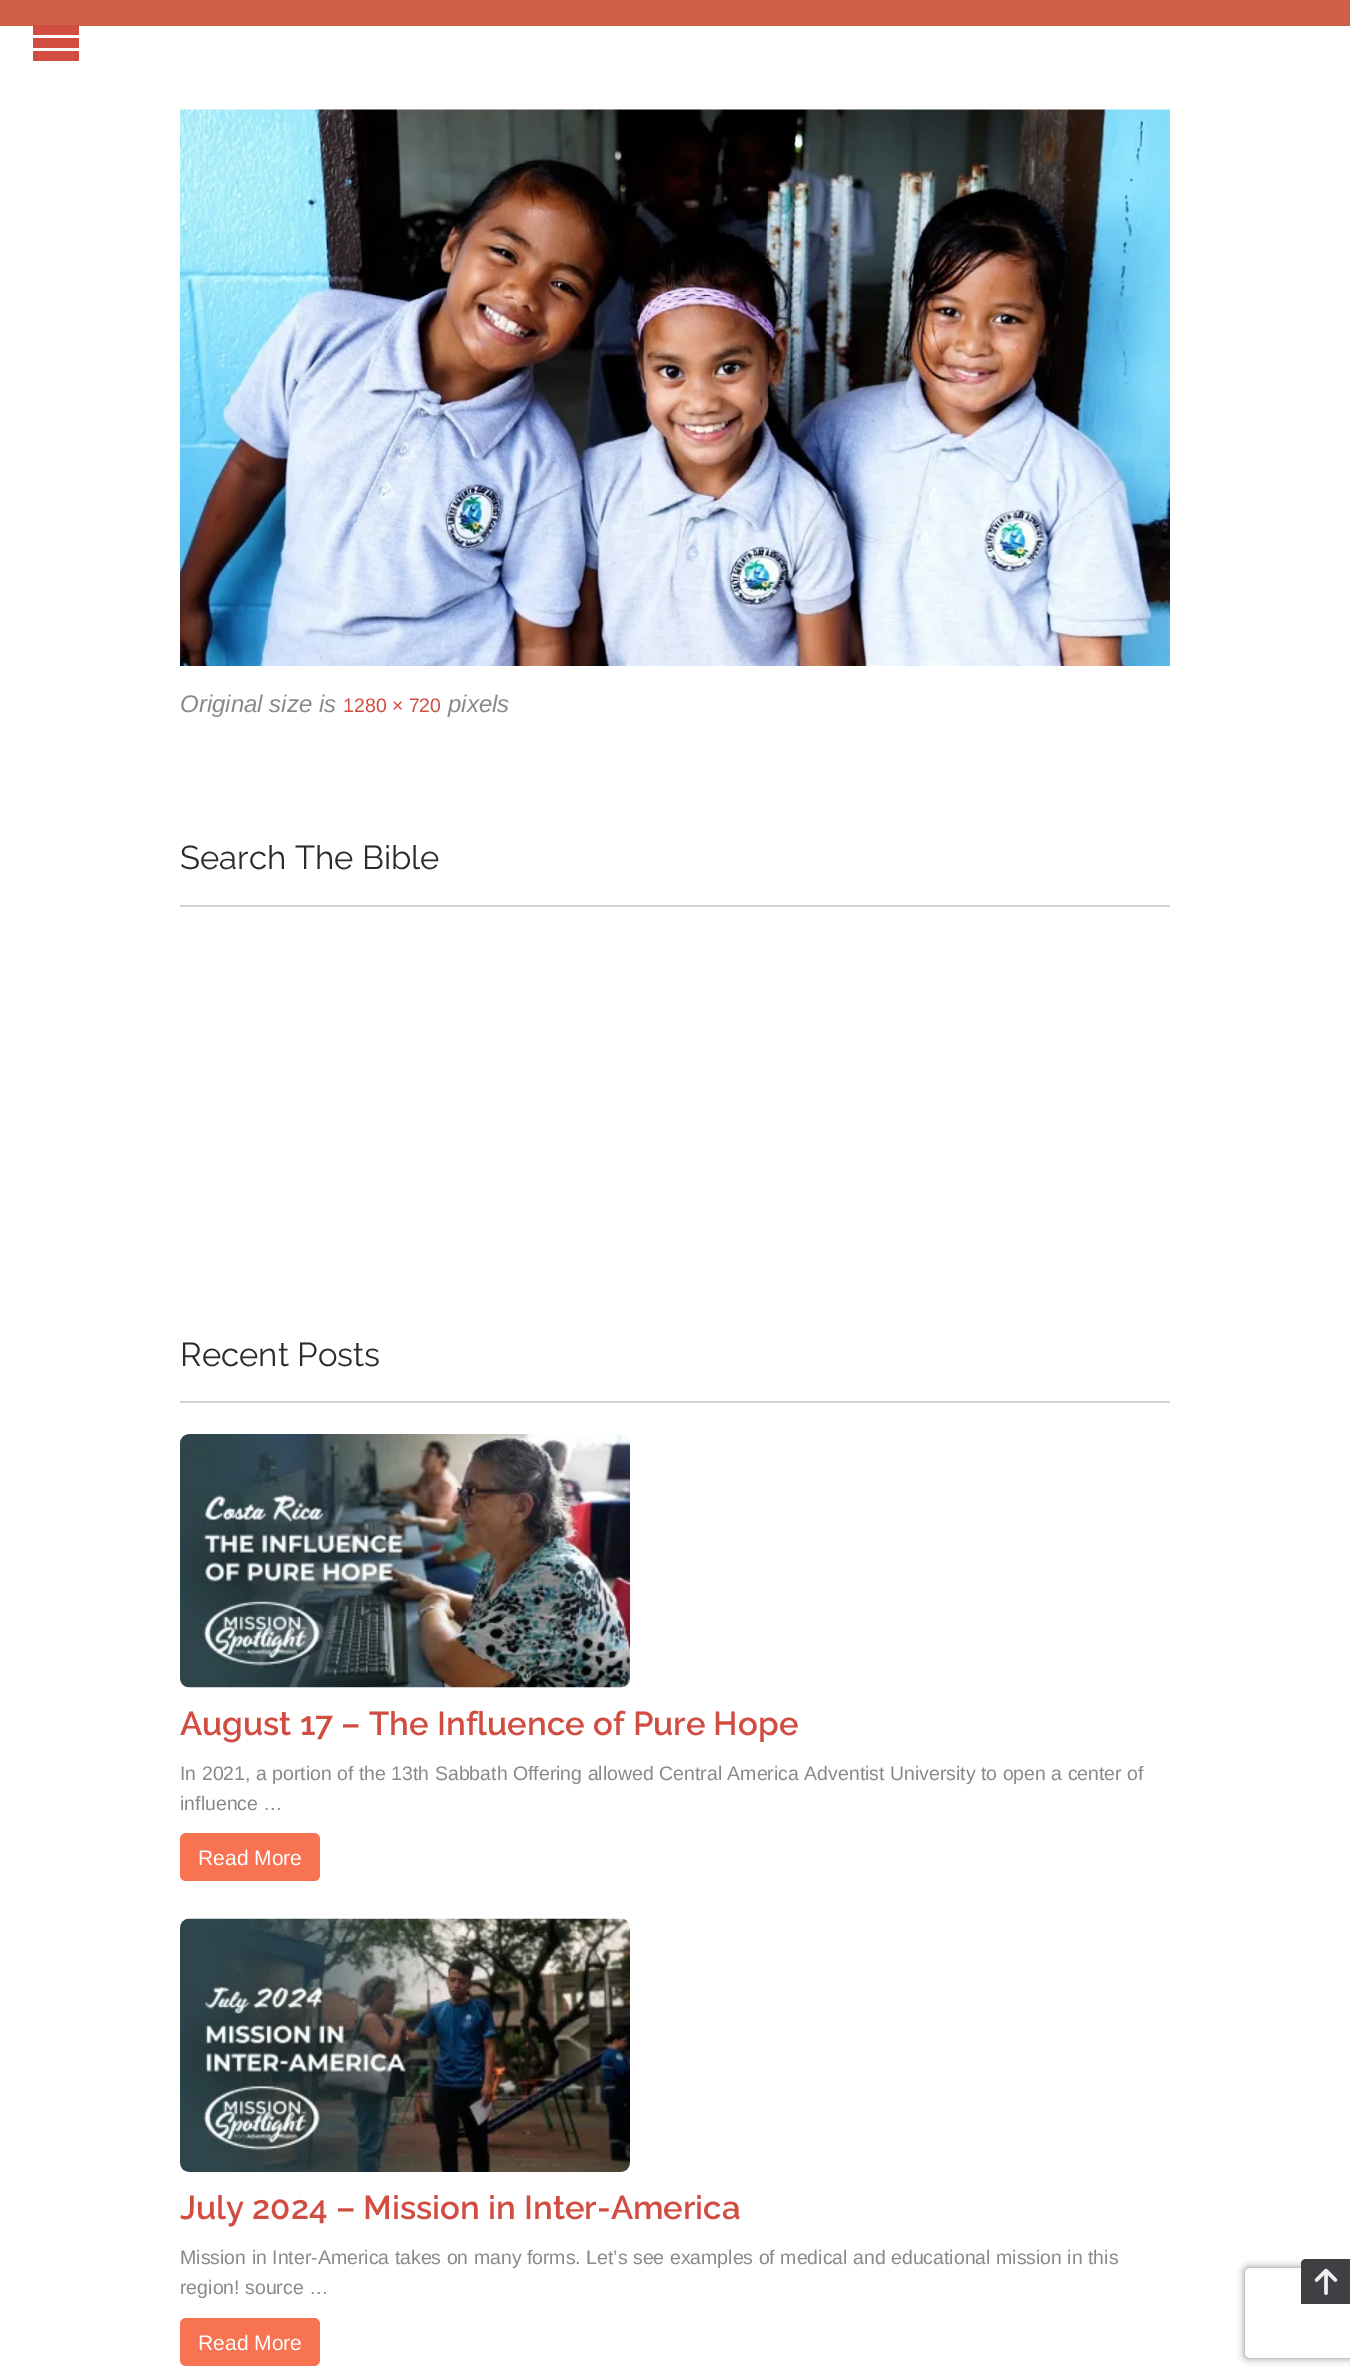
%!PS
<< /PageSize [1350 2378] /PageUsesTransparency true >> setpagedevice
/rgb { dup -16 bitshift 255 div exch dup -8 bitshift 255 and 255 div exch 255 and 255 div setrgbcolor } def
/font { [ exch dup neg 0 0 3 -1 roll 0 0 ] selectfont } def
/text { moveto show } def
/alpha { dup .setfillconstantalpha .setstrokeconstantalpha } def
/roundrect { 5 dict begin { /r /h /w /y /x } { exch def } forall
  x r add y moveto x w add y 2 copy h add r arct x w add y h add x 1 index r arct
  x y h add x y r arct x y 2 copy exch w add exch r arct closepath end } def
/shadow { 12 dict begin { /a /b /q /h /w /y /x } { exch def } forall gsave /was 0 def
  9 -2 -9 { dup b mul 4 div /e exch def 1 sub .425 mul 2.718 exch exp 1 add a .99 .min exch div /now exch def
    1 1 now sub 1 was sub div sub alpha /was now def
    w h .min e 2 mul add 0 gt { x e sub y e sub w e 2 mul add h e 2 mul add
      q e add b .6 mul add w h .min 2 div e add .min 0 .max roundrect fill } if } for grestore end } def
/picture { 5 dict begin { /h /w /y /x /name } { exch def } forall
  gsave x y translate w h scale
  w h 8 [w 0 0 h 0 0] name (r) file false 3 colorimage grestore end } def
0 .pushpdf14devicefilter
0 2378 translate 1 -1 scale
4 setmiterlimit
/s1 { /LiberationSans-Italic 24 font 16#898989 rgb } def
/s2 { /LiberationSans-Regular 19.5 font 16#D14D42 rgb } def
/s3 { /Raleway-Regular 33 font 16#2B2B2B rgb } def
/s4 { /Raleway-SemiBold 33 font 16#D14D42 rgb } def
/s5 { /LiberationSans-Regular 19.5 font 16#898989 rgb } def
/s6 { /LiberationSans-Regular 21 font 16#FFFFFF rgb } def
16#FFFFFF rgb
0 0 1350 2378 rectfill
16#CE6047 rgb
0 0 1350 26 rectfill
16#D14D42 rgb
33 25 moveto 79 25 lineto 79 35 lineto 33 35 lineto closepath 33 38 moveto 79 38 lineto 79 48 lineto 33 48 lineto closepath 33 51 moveto 79 51 lineto 79 61 lineto 33 61 lineto closepath fill
(pic1.raw) 180 109 990 557 picture
s1
(Original size is) 180 712 text
s2
(1280 × 720) 343 712 text
s1
(pixels) 448 712 text
16#D4D4D4 rgb
180 905 990 2 rectfill
s3
(Search The Bible) 180 869 text
16#D4D4D4 rgb
180 1401 990 2 rectfill
s3
(Recent Posts) 180 1366 text
(pic2.raw) 180 1434 450 254 picture
s4
(August 17 – The Influence of Pure Hope) 180 1735 text
s5
(In 2021, a portion of the 13th Sabbath Offering allowed Central America Adventist University to open a center of) 180 1780 text
(influence …) 180 1810 text
16#F77352 rgb
180 1833 140 48 6 roundrect fill
s6
(Read More) 198 1865 text
(pic3.raw) 180 1918 450 254 picture
s4
(July 2024 – Mission in Inter-America) 180 2219 text
s5
(Mission in Inter-America takes on many forms. Let’s see examples of medical and educational mission in this) 180 2264 text
(region! source …) 180 2294 text
16#F77352 rgb
180 2318 140 48 6 roundrect fill
s6
(Read More) 198 2350 text
gsave
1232 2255 moveto 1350 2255 lineto 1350 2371 lineto 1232 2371 lineto closepath 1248 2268 moveto 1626 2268 lineto 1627.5 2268 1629 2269.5 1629 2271 curveto 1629 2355 lineto 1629 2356.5 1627.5 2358 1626 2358 curveto 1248 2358 lineto 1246.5 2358 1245 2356.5 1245 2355 curveto 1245 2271 lineto 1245 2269.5 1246.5 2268 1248 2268 curveto closepath eoclip newpath
16#808080 rgb
1245 2268 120 90 3 4 1 shadow
grestore
16#3E4043 rgb
1306 2259 moveto 1350 2259 lineto 1350 2304 lineto 1301 2304 lineto 1301 2264 lineto 1301 2261 1303 2259 1306 2259 curveto closepath fill
(pic4.raw) 1314 2268 24 27 picture
.poppdf14devicefilter showpage
